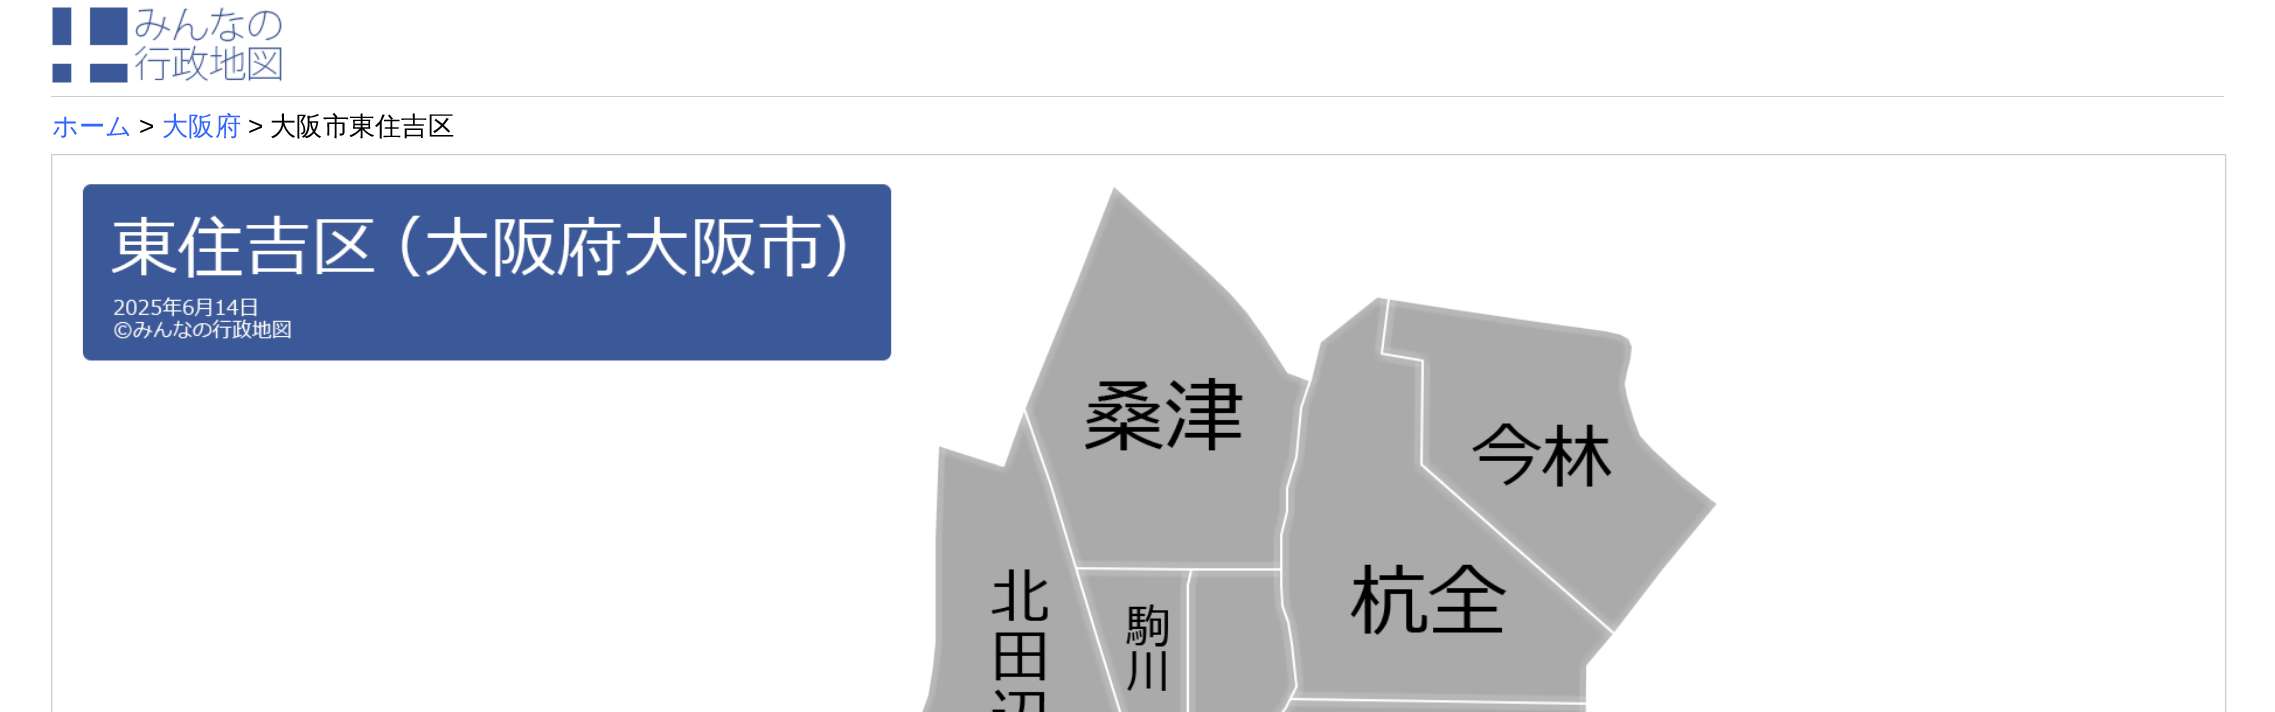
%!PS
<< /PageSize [2275 712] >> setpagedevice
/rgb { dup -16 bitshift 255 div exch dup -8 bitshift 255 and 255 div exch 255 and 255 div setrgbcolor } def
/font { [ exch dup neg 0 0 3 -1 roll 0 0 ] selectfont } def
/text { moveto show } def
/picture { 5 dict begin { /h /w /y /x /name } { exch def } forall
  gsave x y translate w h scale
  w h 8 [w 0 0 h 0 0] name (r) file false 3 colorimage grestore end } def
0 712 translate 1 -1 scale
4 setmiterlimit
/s1 { /WenQuanYiZenHei-Medium 26.25 font 16#3366FF rgb } def
/s2 { /LiberationSans-Regular 26.25 font 16#000000 rgb } def
/s3 { /WenQuanYiZenHei-Medium 26.25 font 16#000000 rgb } def
16#FFFFFF rgb
0 0 2275 712 rectfill
16#CCCCCC rgb
51 96 2173 1 rectfill
(pic1.raw) 52 7 230 76 picture
s1
(ホーム) 52 135 text
s2
(>) 139 135 text
s1
(大阪府) 162 135 text
s2
(>) 248 135 text
s3
(大阪市東住吉区) 270 135 text
16#CCCCCC rgb
51.5 154.5 2174 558 rectstroke
(pic2.raw) 82 184 1635 528 picture
showpage
